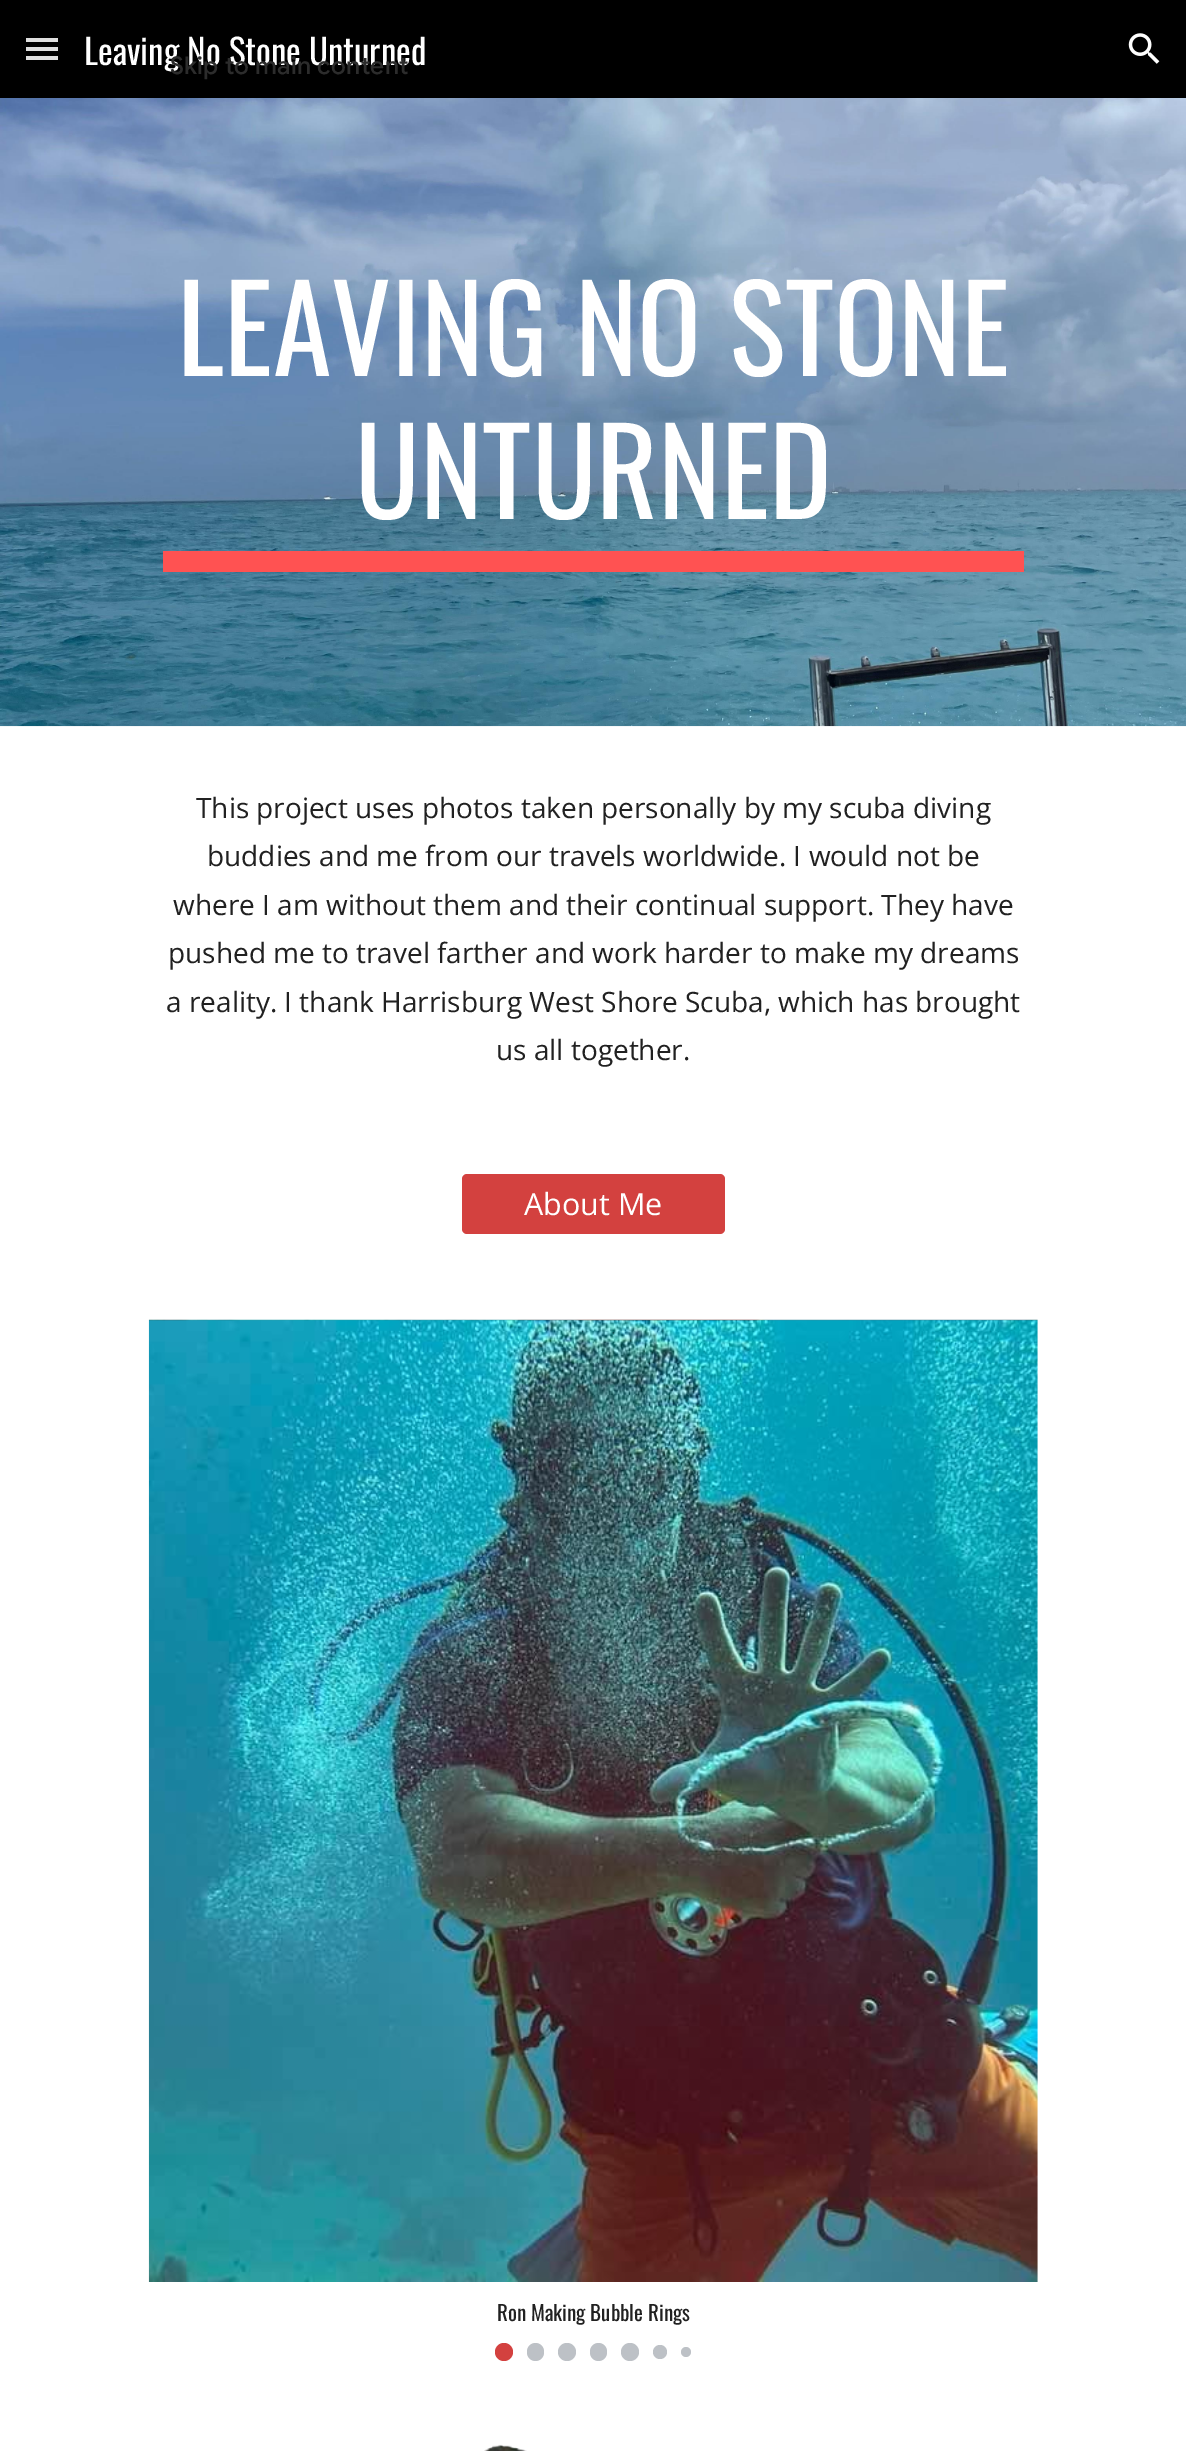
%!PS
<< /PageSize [1186 2451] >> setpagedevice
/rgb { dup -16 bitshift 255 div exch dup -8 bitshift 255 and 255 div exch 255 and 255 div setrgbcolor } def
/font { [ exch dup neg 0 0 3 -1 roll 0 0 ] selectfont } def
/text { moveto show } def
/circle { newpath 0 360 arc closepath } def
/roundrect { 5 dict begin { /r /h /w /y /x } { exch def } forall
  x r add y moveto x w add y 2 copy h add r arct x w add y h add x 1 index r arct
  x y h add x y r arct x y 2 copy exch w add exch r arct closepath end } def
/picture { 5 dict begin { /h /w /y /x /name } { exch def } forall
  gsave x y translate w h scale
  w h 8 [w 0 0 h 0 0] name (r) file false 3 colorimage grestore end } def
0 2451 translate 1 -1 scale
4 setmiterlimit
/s1 { /Oswald-Regular 35 font 16#FFFFFF rgb } def
/s2 { /Oswald-Regular 119 font 16#FFFFFF rgb } def
/s3 { /OpenSans-Regular 28 font 16#212121 rgb } def
/s4 { /OpenSans-Regular 30.5 font 16#FFFFFF rgb } def
/s5 { /Oswald-Regular 21 font 16#212121 rgb } def
16#FFFFFF rgb
0 0 1186 2451 rectfill
16#000000 rgb
0 0 1186 98 rectfill
16#DFDFDF rgb
26 38 32 4 rectfill
26 47 32 4 rectfill
26 56 32 4 rectfill
s1
(Leaving No Stone Unturned) 84 65 text
(pic1.raw) 1128 33 32 31 picture
(pic2.raw) 0 98 1186 629 picture
s2
(LEAVING NO STONE) 177 376 text
(UNTURNED) 355 519 text
16#FF5252 rgb
163 551 861 21 rectfill
s3
(This project uses photos taken personally by my scuba diving) 196 818 text
(buddies and me from our travels worldwide. I would not be) 207 866 text
(where I am without them and their continual support. They have) 173 915 text
(pushed me to travel farther and work harder to make my dreams) 168 963 text
(a reality. I thank Harrisburg West Shore Scuba, which has brought) 166 1012 text
(us all together.) 496 1060 text
16#D3413F rgb
462 1174 263 60 5 roundrect fill
s4
(About Me) 524 1215 text
(pic3.raw) 148 1319 890 963 picture
s5
(Ron Making Bubble Rings) 497 2321 text
16#D3413F rgb
504 2352 9 circle fill
16#BDC1C6 rgb
527 2343 17 18 8.5 roundrect fill
567 2352 9 circle fill
590 2343 17 18 8.5 roundrect fill
630 2352 9 circle fill
660 2352 7 circle fill
686 2352 5 circle fill
(pic4.raw) 484 2444 43 7 picture
/GoogleSans-Medium 24.5 font
16#2C2C2C rgb
170 74 moveto 0.25 0 (Skip to main content) ashow
showpage
